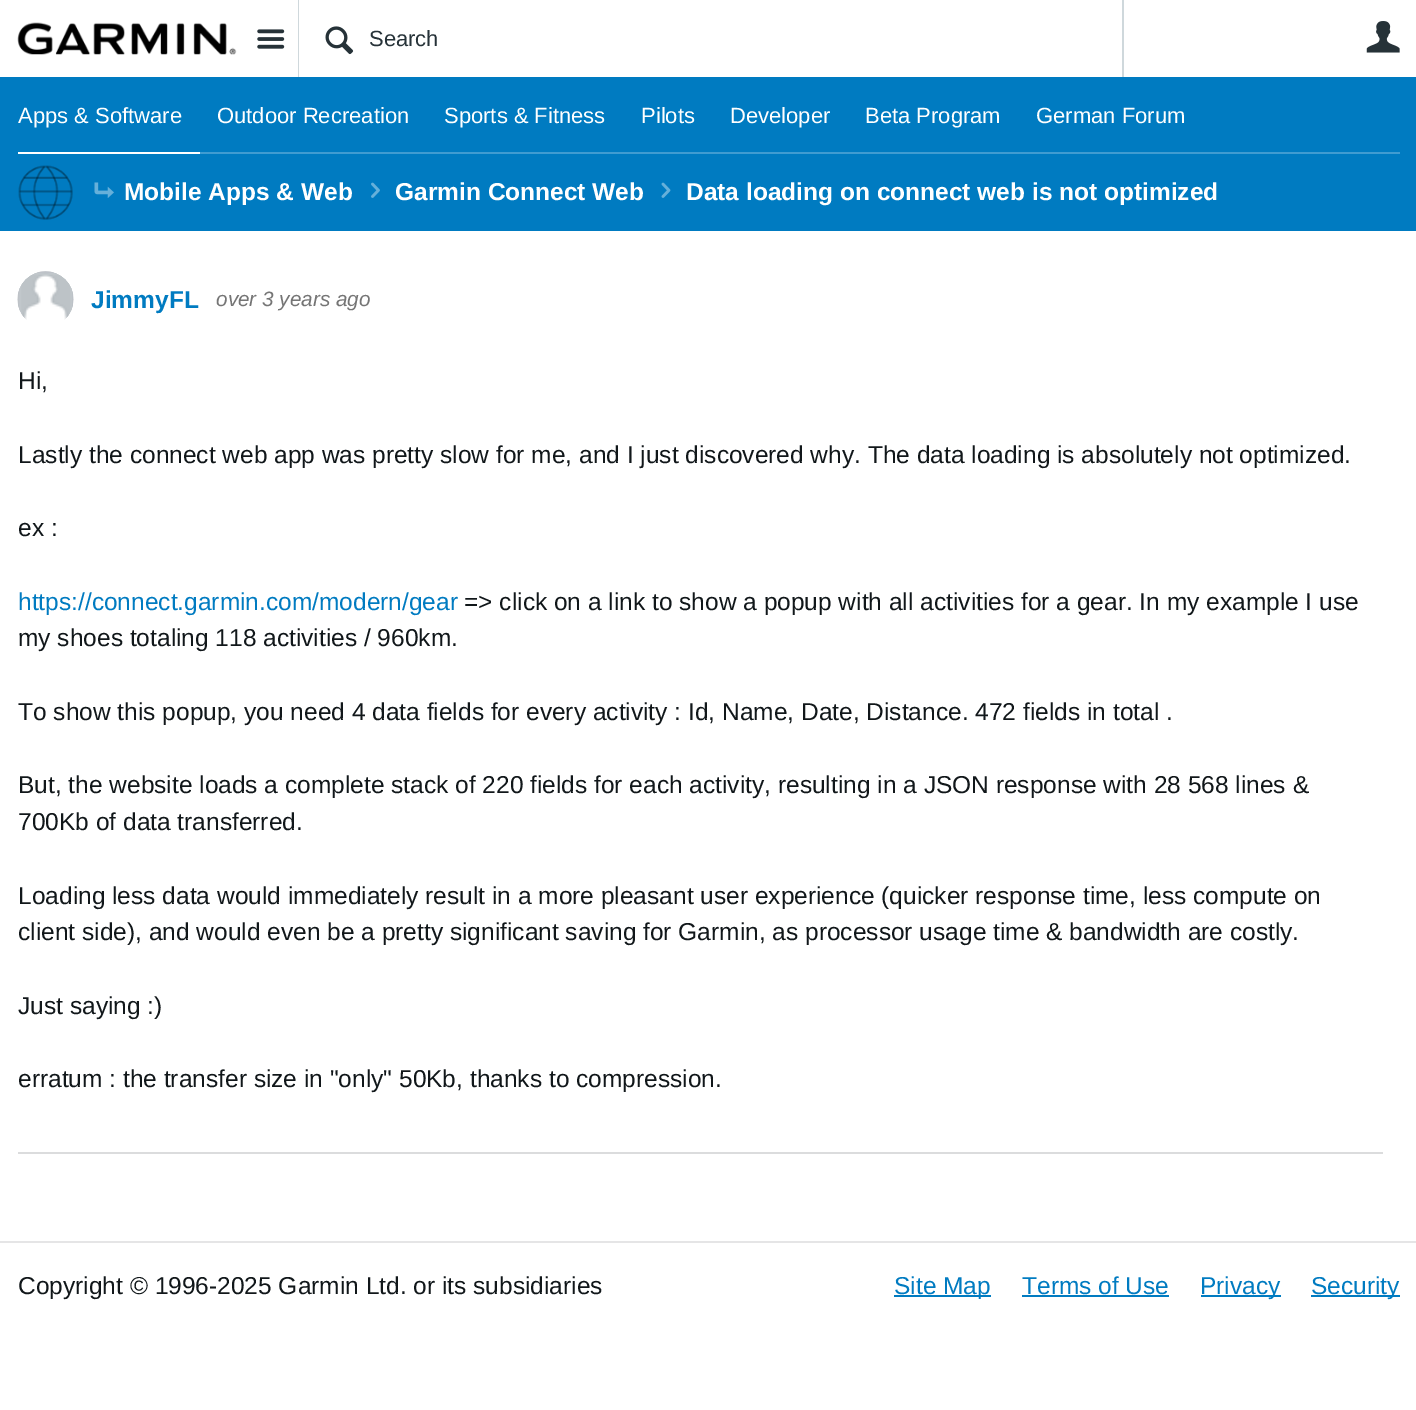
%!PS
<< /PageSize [1416 1410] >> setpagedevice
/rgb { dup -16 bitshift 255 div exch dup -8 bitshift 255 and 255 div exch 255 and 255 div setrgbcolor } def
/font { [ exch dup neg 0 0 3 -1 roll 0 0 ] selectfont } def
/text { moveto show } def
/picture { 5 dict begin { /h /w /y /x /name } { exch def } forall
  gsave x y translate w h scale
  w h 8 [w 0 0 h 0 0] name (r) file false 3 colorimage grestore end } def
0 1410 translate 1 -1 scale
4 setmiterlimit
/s1 { /LiberationSans-Regular 22 font 16#263238 rgb } def
/s2 { /LiberationSans-Regular 22 font 16#FFFFFF rgb } def
/s3 { /LiberationSans-Bold 24.5 font 16#FFFFFF rgb } def
/s4 { /LiberationSans-Bold 24.5 font 16#007BC1 rgb } def
/s5 { /LiberationSans-Italic 20.75 font 16#757575 rgb } def
/s6 { /LiberationSans-Regular 24.5 font 16#11171A rgb } def
/s7 { /LiberationSans-Regular 24.5 font 16#007BC1 rgb } def
16#FFFFFF rgb
0 0 1416 1410 rectfill
(pic1.raw) 17 22 220 33 picture
(pic2.raw) 257 29 28 20 picture
16#CFD8DC rgb
1122 0 2 77 rectfill
298 0 1 77 rectfill
(pic3.raw) 325 26 29 29 picture
s1
(Search) 369 46 text
(pic4.raw) 1366 21 34 32 picture
16#007BC1 rgb
0 77 1416 154 rectfill
s2
(Apps & Software) 18 123 text
18 152 182 2 rectfill
(Outdoor Recreation) 217 123 text
(Sports & Fitness) 444 123 text
(Pilots) 641 123 text
(Developer) 730 123 text
(Beta Program) 865 123 text
(German Forum) 1036 123 text
16#409CD1 rgb
200 152 1200 2 rectfill
(pic5.raw) 18 165 55 55 picture
(pic6.raw) 18 165 55 55 picture
(pic7.raw) 94 182 20 16 picture
s3
(Mobile Apps & Web) 124 200 text
(pic8.raw) 371 182 9 16 picture
(Garmin Connect Web) 395 200 text
(pic9.raw) 661 182 10 16 picture
(Data loading on connect web is not optimized) 686 200 text
(pic10.raw) 17 271 57 49 picture
(pic11.raw) 17 271 57 47 picture
s4
(JimmyFL) 91 308 text
s5
(over 3 years ago) 216 306 text
16#DBDCDD rgb
18 1152 1365 2 rectfill
s6
(Hi,) 18 389 text
(Lastly the connect web app was pretty slow for me, and I just discovered why. The data loading is absolutely not optimized.) 18 463 text
(ex :) 18 536 text
s7
(https://connect.garmin.com/modern/gear) 18 610 text
s6
(=> click on a link to show a popup with all activities for a gear. In my example I use) 464 610 text
(my shoes totaling 118 activities / 960km.) 18 646 text
(To show this popup, you need 4 data fields for every activity : Id, Name, Date, Distance. 472 fields in total .) 18 720 text
(But, the website loads a complete stack of 220 fields for each activity, resulting in a JSON response with 28 568 lines &) 18 793 text
(700Kb of data transferred.) 18 830 text
(Loading less data would immediately result in a more pleasant user experience \(quicker response time, less compute on) 18 904 text
(client side\), and would even be a pretty significant saving for Garmin, as processor usage time & bandwidth are costly.) 18 940 text
(Just saying :\)) 18 1014 text
(erratum : the transfer size in "only" 50Kb, thanks to compression.) 18 1087 text
16#E5E5E6 rgb
0 1241 1416 2 rectfill
s6
(Copyright © 1996-2025 Garmin Ltd. or its subsidiaries) 18 1294 text
16#007BC1 rgb
894 1295 97 2 rectfill
(Site Map) 894 1294 text
(Terms of Use) 1022 1294 text
1022 1295 147 2 rectfill
1201 1295 80 2 rectfill
(Privacy) 1200 1294 text
1311 1295 89 2 rectfill
(Security) 1311 1294 text
showpage
